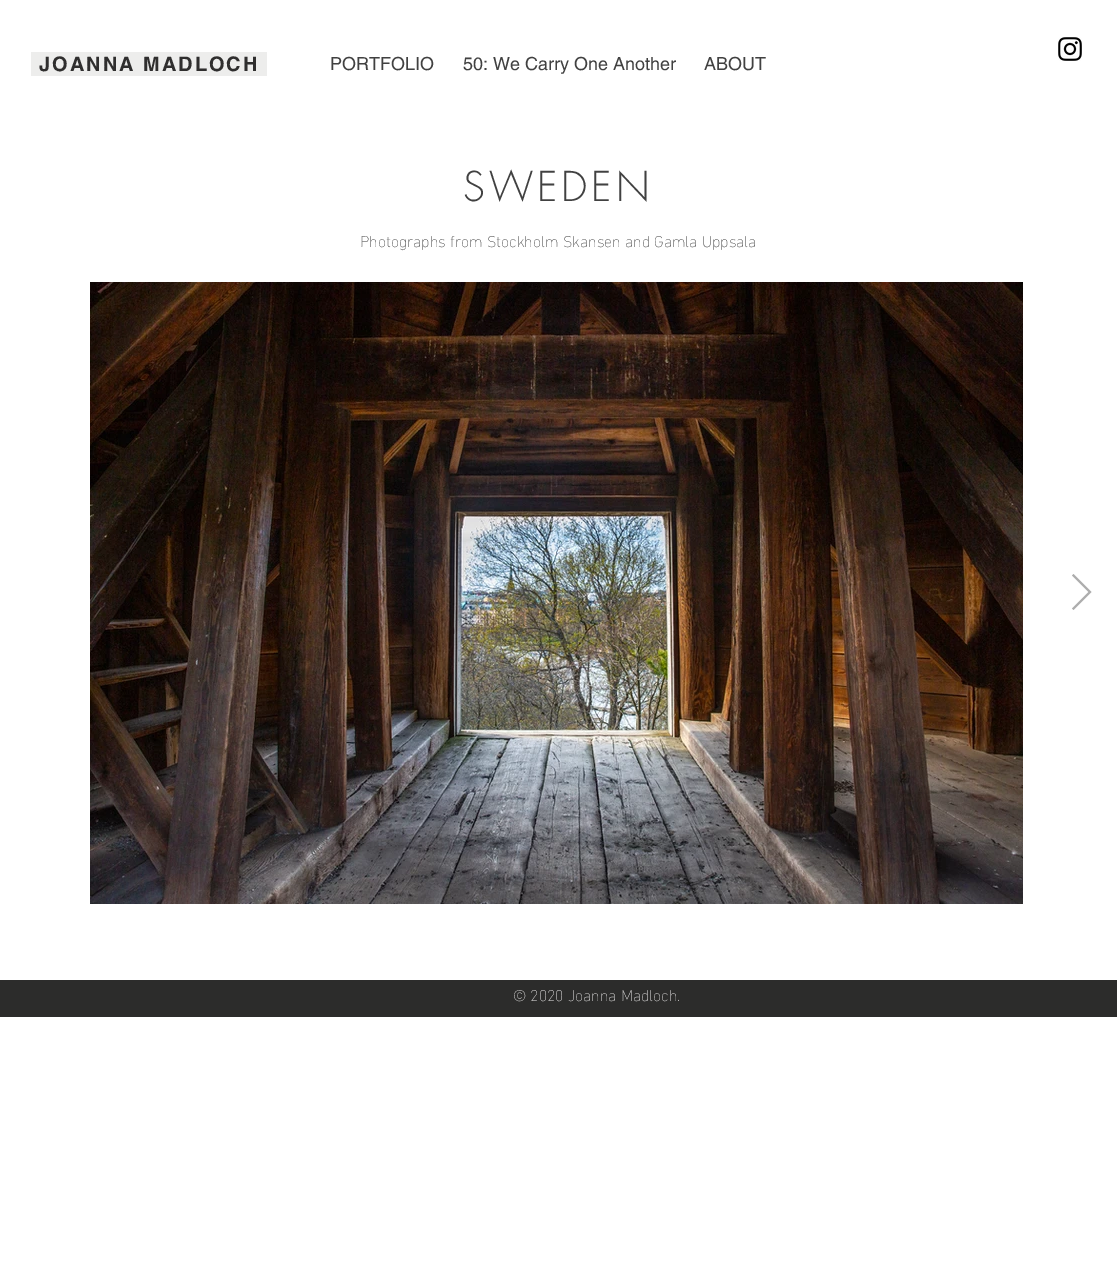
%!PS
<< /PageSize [1117 1268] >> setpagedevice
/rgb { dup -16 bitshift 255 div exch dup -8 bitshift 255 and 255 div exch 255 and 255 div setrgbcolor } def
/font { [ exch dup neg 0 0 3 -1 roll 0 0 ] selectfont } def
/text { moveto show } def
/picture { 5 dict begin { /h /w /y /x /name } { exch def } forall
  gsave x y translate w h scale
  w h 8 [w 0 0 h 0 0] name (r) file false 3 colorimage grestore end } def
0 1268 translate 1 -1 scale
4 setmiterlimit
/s1 { /helvetica-Regular 18 font 16#414141 rgb } def
/s2 { /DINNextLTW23-ExtraLight 16 font 16#414141 rgb } def
/s3 { /DINNextLTW23-ExtraLight 16 font 16#E8E6E6 rgb } def
16#FFFFFF rgb
0 0 1117 1268 rectfill
(pic1.raw) 1058 37 24 24 picture
16#EDEDEC rgb
31 52 236 24 rectfill
/helvetica-Bold 20 font
16#2F2E2E rgb
39 71 moveto 2 0 (JOANNA MADLOCH) ashow
s1
(PORTFOLIO) 330 70 text
(50: We Carry One Another) 463 70 text
(ABOUT) 704 70 text
/futura-Light 40 font
463 201 moveto 4 0 (SWEDEN) ashow
s2
(Photographs from Stockholm Skansen and Gamla Uppsala) 360 247 text
(pic2.raw) 90 282 933 622 picture
16#ADADAD rgb
1072 575.5 moveto 1073.5 574 lineto 1091.5 592 lineto 1073.5 610 lineto 1072 608.5 lineto 1088.5 592 lineto closepath fill
16#2C2C2B rgb
0 980 1117 37 rectfill
s3
(© 2020 Joanna Madloch.) 513 1001 text
showpage
